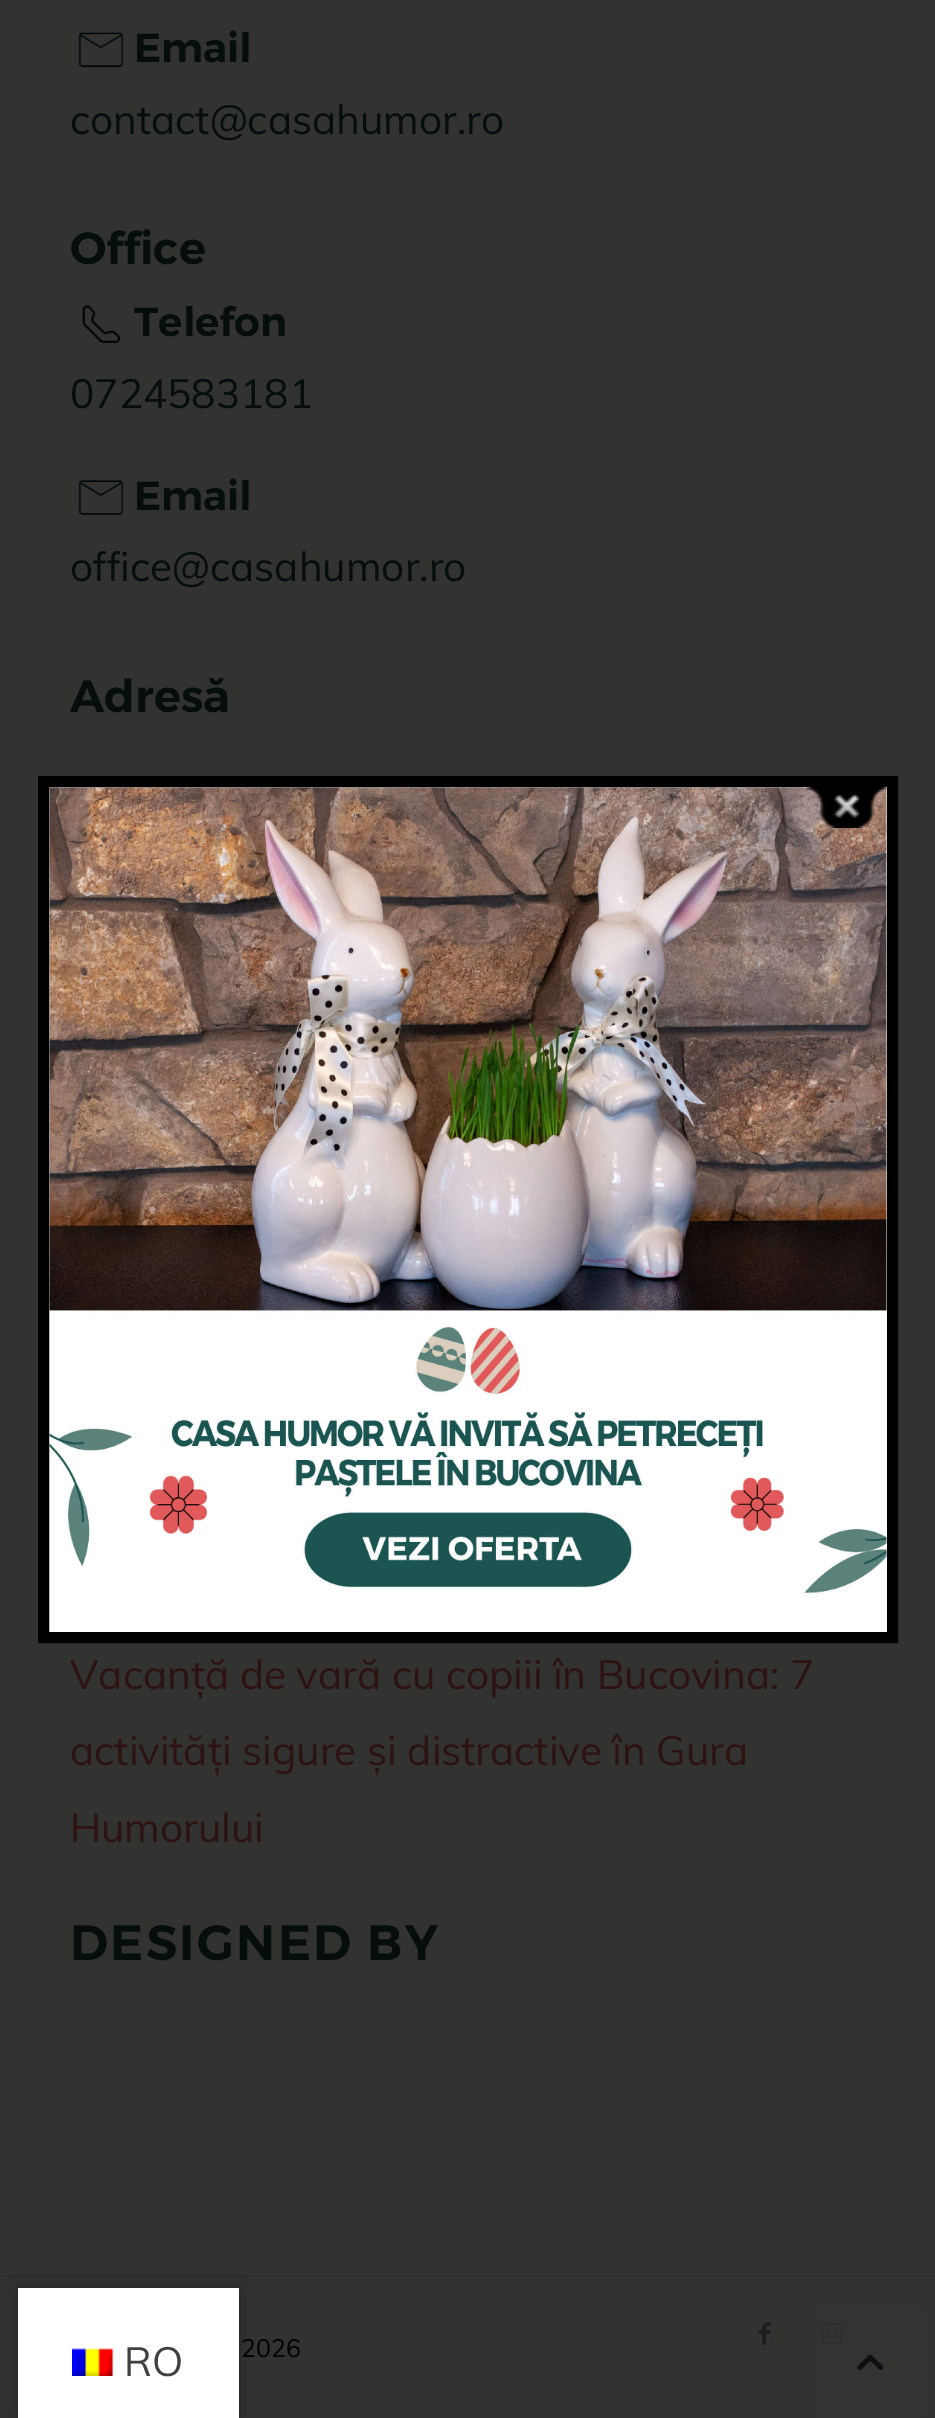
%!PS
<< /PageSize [935 2418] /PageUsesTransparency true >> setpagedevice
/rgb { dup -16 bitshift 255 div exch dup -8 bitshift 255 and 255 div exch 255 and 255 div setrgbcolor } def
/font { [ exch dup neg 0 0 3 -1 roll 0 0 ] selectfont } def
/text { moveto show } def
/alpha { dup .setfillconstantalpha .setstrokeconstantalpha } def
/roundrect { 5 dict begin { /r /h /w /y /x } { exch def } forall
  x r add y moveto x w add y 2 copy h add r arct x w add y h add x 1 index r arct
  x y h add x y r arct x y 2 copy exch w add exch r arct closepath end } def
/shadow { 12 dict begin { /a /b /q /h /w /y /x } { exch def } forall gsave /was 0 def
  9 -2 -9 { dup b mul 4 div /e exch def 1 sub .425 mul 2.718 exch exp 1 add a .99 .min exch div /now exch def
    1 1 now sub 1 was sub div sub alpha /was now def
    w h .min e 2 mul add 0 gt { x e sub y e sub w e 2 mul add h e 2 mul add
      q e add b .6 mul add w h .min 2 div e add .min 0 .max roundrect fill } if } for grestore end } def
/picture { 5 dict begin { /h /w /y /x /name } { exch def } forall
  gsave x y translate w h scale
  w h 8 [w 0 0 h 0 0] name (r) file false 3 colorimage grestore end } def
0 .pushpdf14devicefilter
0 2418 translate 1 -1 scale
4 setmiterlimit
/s1 { /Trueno-SemiBold 40.5 font 16#050D0D rgb } def
/s2 { /Muli-Regular 40.5 font 16#050D0D rgb } def
/s3 { /Trueno-SemiBold 45 font 16#050D0D rgb } def
/s4 { /Muli-Regular 40.5 font 16#2D1212 rgb } def
/s5 { /Muli-Regular 25 font 16#000000 rgb } def
/s6 { /Muli-Regular 40.5 font 16#404040 rgb } def
16#323231 rgb
0 0 935 2418 rectfill
(pic1.raw) 78 32 46 36 picture
s1
(Email) 134 62 text
s2
(contact@casahumor.ro) 70 134 text
s3
(Office) 70 264 text
(pic2.raw) 82 305 39 39 picture
s1
(Telefon) 134 336 text
s2
(0724583181) 70 408 text
(pic3.raw) 78 480 46 35 picture
s1
(Email) 134 510 text
s2
(office@casahumor.ro) 70 581 text
s3
(Adresă) 70 712 text
s4
(Vacanță de vară cu copiii în Bucovina: 7) 70 1689 text
(activități sigure și distractive în Gura) 70 1765 text
(Humorului) 70 1842 text
/Trueno-SemiBold 49.5 font
16#050D0D rgb
70 1960 moveto 2.25 0 (DESIGNED BY) ashow
16#2F2F2F rgb
0 2275 935 2 rectfill
(pic4.raw) 758 2322 13 23 picture
(pic5.raw) 821 2323 22 22 picture
s5
(2026) 241 2357 text
16#FFFFFF rgb
49 787 838 845 rectfill
(pic6.raw) 49 787 838 808 picture
16#000000 rgb
11 setlinewidth
43.5 781.5 849 856 rectstroke
(pic7.raw) 803 787 84 41 picture
18 2288 221 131 0 9 0.25 shadow
16#FFFFFF rgb
18 2288 221 130 rectfill
(pic8.raw) 72 2348 42 28 picture
s6
(RO) 124 2376 text
0.7 alpha
16#333333 rgb
815 2306 112 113 5 roundrect fill
1 alpha
(pic9.raw) 857 2354 27 17 picture
.poppdf14devicefilter showpage
